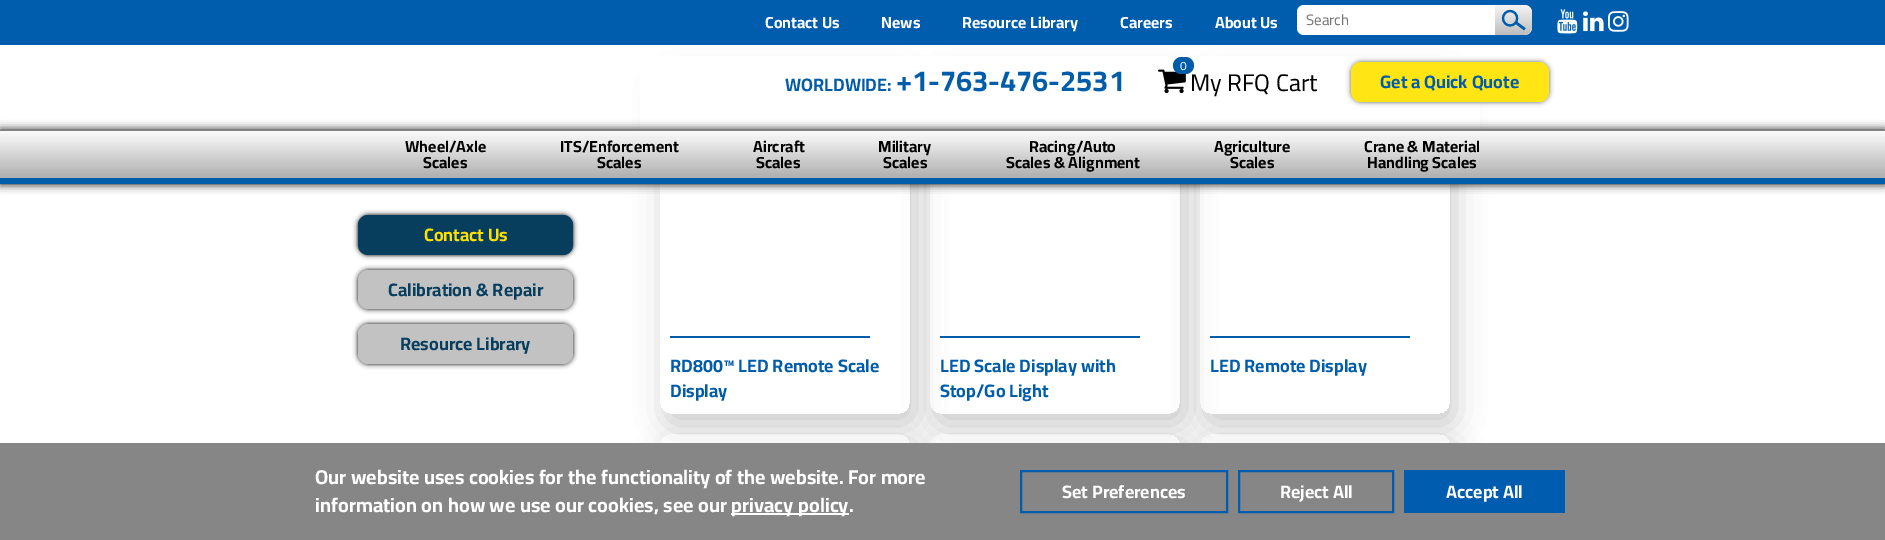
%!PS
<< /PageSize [1885 540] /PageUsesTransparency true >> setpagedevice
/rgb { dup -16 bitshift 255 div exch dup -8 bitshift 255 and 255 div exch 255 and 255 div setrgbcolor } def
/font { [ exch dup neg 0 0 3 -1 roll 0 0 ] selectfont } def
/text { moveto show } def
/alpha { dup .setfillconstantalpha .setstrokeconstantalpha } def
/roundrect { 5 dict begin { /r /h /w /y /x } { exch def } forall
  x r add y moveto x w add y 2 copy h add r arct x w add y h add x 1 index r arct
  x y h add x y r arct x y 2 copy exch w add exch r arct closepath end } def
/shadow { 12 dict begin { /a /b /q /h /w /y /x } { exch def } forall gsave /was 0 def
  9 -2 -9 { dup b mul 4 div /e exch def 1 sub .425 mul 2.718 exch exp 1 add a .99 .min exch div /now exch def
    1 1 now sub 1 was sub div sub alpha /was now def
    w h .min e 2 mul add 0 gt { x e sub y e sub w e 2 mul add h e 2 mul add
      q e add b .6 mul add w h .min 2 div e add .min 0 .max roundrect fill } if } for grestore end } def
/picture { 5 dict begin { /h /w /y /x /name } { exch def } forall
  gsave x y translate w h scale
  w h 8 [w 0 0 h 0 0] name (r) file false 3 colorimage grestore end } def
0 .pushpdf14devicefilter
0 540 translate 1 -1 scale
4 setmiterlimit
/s1 { /Cairo-Bold 16 font 16#FFFFFF rgb } def
/s2 { /Cairo-Regular 15 font 16#757575 rgb } def
/s3 { /Cairo-Bold 18 font 16#015DAA rgb } def
/s4 { /Cairo-Bold 29 font 16#015DAA rgb } def
/s5 { /Cairo-Regular 12 font 16#FFFFFF rgb } def
/s6 { /Cairo-Regular 24 font 16#000000 rgb } def
/s7 { /Cairo-Bold 16 font 16#000000 rgb } def
/s8 { /Cairo-Bold 18 font 16#FFE101 rgb } def
/s9 { /Cairo-Bold 18 font 16#073D5D rgb } def
/s10 { /Cairo-Bold 20 font 16#FFFFFF rgb } def
/s11 { /Cairo-Bold 18 font 16#FFFFFF rgb } def
16#FFFFFF rgb
0 0 1885 540 rectfill
gsave
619 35 moveto 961 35 lineto 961 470 lineto 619 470 lineto closepath 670 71 moveto 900 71 lineto 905.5 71 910 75.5 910 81 curveto 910 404 lineto 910 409.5 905.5 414 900 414 curveto 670 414 lineto 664.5 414 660 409.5 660 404 curveto 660 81 lineto 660 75.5 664.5 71 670 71 curveto closepath eoclip newpath
16#000000 rgb
665 81 250 343 10 15 0.2 shadow
grestore
gsave
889 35 moveto 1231 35 lineto 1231 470 lineto 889 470 lineto closepath 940 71 moveto 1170 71 lineto 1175.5 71 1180 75.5 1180 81 curveto 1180 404 lineto 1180 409.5 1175.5 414 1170 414 curveto 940 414 lineto 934.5 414 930 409.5 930 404 curveto 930 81 lineto 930 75.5 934.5 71 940 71 curveto closepath eoclip newpath
16#000000 rgb
935 81 250 343 10 15 0.2 shadow
grestore
gsave
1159 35 moveto 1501 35 lineto 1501 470 lineto 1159 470 lineto closepath 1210 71 moveto 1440 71 lineto 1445.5 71 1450 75.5 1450 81 curveto 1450 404 lineto 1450 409.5 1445.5 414 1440 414 curveto 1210 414 lineto 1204.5 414 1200 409.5 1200 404 curveto 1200 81 lineto 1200 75.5 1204.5 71 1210 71 curveto closepath eoclip newpath
16#000000 rgb
1205 81 250 343 10 15 0.2 shadow
grestore
640 56 840 75 rectfill
16#005DAE rgb
0 0 1885 45 rectfill
s1
(Contact Us) 765 28 text
(News) 881 28 text
(Resource Library) 962 28 text
(Careers) 1120 28 text
(About Us) 1215 28 text
1297 5 235 30 7 roundrect fill
s2
(Search) 1306 25 text
(pic1.raw) 1495 5 37 30 picture
(pic2.raw) 1557 9 21 25 picture
(pic3.raw) 1583 11 21 21 picture
(pic4.raw) 1608 11 21 21 picture
s3
(WORLDWIDE:) 785 91 text
s4
(+1-763-476-2531) 896 91 text
(pic5.raw) 1158 69 28 25 picture
1173 57 21 17 8.5 roundrect fill
s5
(0) 1180 70 text
s6
(My RFQ Cart) 1190 91 text
16#666666 rgb
1351 62 198 40 10 2.5 1 shadow
16#FFE514 rgb
1351 62 198 40 10 roundrect fill
s3
(Get a Quick Quote) 1380 88 text
16#000000 rgb
0 130 1885 54 0 4.5 1 shadow
(pic6.raw) 0 131 1885 47 picture
16#015DAA rgb
0 178 1885 6 rectfill
s7
(Wheel/Axle) 405 152 text
(Scales) 423 168 text
(ITS/Enforcement) 560 152 text
(Scales) 597 168 text
(Aircraft) 753 152 text
(Scales) 756 168 text
(Military) 878 152 text
(Scales) 883 168 text
(Racing/Auto) 1029 152 text
(Scales & Alignment) 1006 168 text
(Agriculture) 1214 152 text
(Scales) 1230 168 text
(Crane & Material) 1364 152 text
(Handling Scales) 1367 168 text
358 215 215 40 10 2.5 1 shadow
16#073D5D rgb
358 215 215 40 10 roundrect fill
s8
(Contact Us) 424 241 text
16#000000 rgb
358 270 215 39 10 2.5 1 shadow
16#C2C2C2 rgb
358 270 215 39 10 roundrect fill
s9
(Calibration & Repair) 388 296 text
16#000000 rgb
358 324 215 40 10 2.5 1 shadow
16#C2C2C2 rgb
358 324 215 40 10 roundrect fill
s9
(Resource Library) 400 350 text
16#015DAA rgb
670 336 200 2 rectfill
(RD800™ LED Remote Scale) 670 372 text
(Display) 670 397 text
940 336 200 2 rectfill
(LED Scale Display with) 940 372 text
(Stop/Go Light) 940 397 text
1210 336 200 2 rectfill
(LED Remote Display) 1210 372 text
gsave
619 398 moveto 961 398 lineto 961 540 lineto 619 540 lineto closepath 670 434 moveto 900 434 lineto 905.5 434 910 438.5 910 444 curveto 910 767 lineto 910 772.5 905.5 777 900 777 curveto 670 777 lineto 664.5 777 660 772.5 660 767 curveto 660 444 lineto 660 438.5 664.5 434 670 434 curveto closepath eoclip newpath
16#000000 rgb
665 444 250 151 10 15 0.2 shadow
grestore
gsave
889 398 moveto 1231 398 lineto 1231 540 lineto 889 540 lineto closepath 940 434 moveto 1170 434 lineto 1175.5 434 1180 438.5 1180 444 curveto 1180 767 lineto 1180 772.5 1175.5 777 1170 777 curveto 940 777 lineto 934.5 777 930 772.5 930 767 curveto 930 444 lineto 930 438.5 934.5 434 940 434 curveto closepath eoclip newpath
16#000000 rgb
935 444 250 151 10 15 0.2 shadow
grestore
gsave
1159 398 moveto 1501 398 lineto 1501 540 lineto 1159 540 lineto closepath 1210 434 moveto 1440 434 lineto 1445.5 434 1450 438.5 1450 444 curveto 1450 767 lineto 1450 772.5 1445.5 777 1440 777 curveto 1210 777 lineto 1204.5 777 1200 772.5 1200 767 curveto 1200 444 lineto 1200 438.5 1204.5 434 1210 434 curveto closepath eoclip newpath
16#000000 rgb
1205 444 250 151 10 15 0.2 shadow
grestore
16#868686 rgb
0 443 1885 97 rectfill
s10
(Our website uses cookies for the functionality of the website. For more) 315 484 text
(information on how we use our cookies, see our) 315 512 text
731 513 118 2 rectfill
(privacy policy.) 731 512 text
16#005CAE rgb
2 setlinewidth
1021 471 206 41 rectstroke
s11
(Set Preferences) 1062 498 text
16#005CAE rgb
1239 471 154 41 rectstroke
s11
(Reject All) 1280 498 text
16#005CAE rgb
1404 470 161 43 rectfill
s11
(Accept All) 1446 498 text
.poppdf14devicefilter showpage
